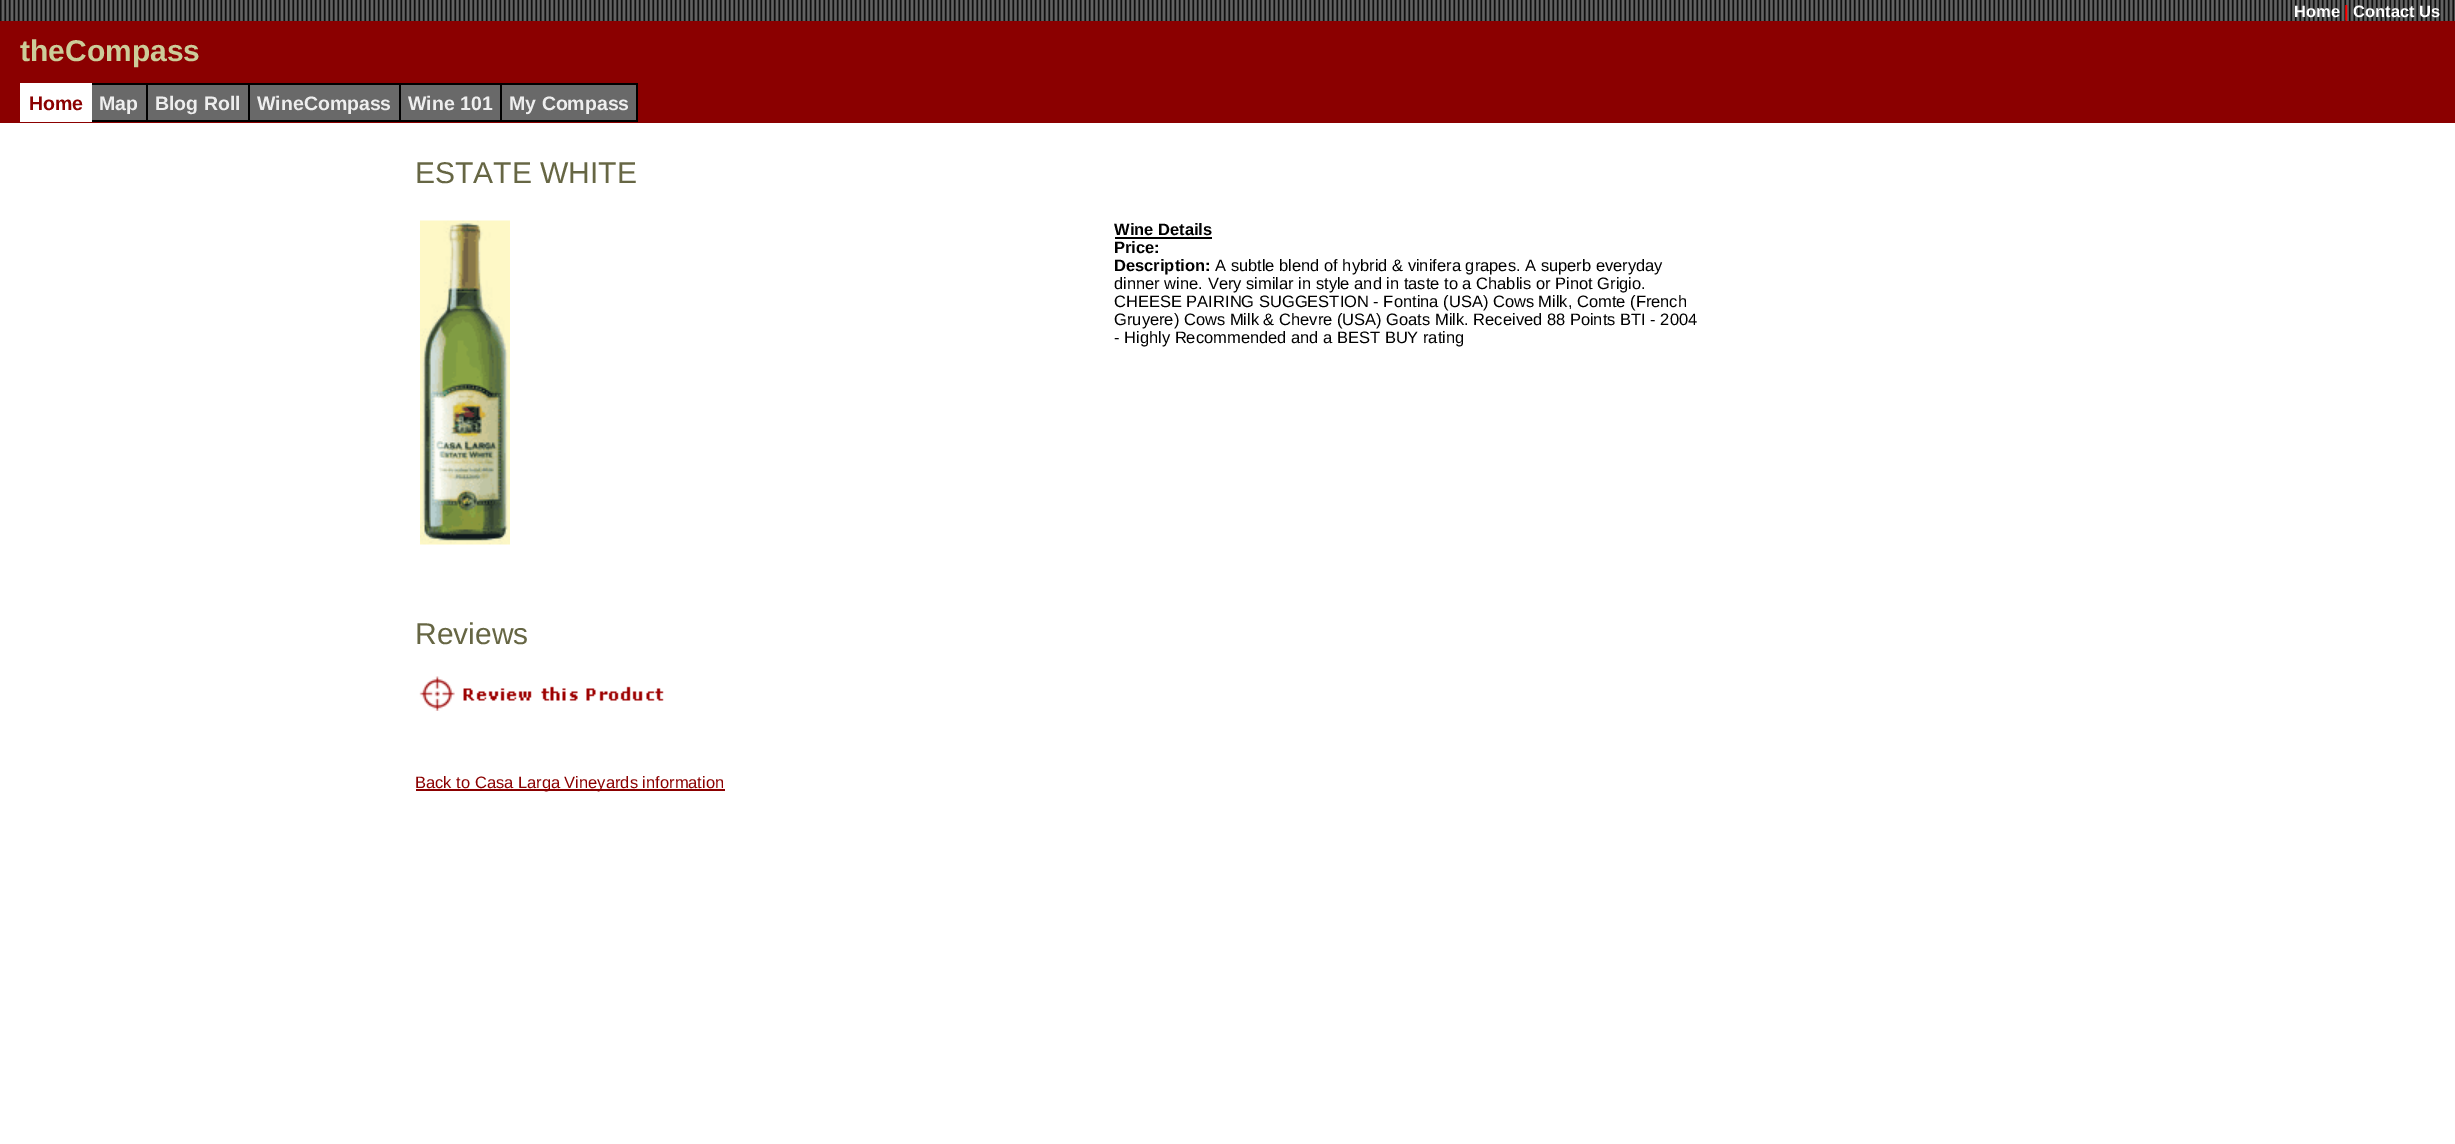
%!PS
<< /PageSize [2455 1144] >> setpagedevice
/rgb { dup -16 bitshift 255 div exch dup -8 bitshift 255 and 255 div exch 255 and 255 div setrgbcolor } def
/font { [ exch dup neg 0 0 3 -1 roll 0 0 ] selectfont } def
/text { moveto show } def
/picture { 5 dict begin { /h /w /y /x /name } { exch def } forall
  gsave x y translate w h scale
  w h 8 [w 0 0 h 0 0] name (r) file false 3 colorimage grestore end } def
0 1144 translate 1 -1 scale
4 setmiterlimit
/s1 { /LiberationSans-Bold 16.5 font 16#FFFFFF rgb } def
/s2 { /LiberationSans-Bold 16.5 font 16#FF0000 rgb } def
/s3 { /LiberationSans-Bold 30 font 16#CCCC99 rgb } def
/s4 { /LiberationSans-Bold 19.5 font 16#8B0000 rgb } def
/s5 { /LiberationSans-Bold 19.5 font 16#EEEEEE rgb } def
/s6 { /LiberationSans-Regular 30 font 16#666644 rgb } def
/s7 { /LiberationSans-Bold 16.5 font 16#000000 rgb } def
/s8 { /LiberationSans-Regular 16.5 font 16#000000 rgb } def
/s9 { /LiberationSans-Regular 16.5 font 16#8B0000 rgb } def
16#FFFFFF rgb
0 0 2455 1144 rectfill
16#8B0000 rgb
0 21 2455 102 rectfill
(pic1.raw) 0 0 2455 21 picture
s1
(Home) 2294 17 text
s2
(|) 2344 17 text
s1
(Contact Us) 2353 17 text
s3
(theCompass) 20 61 text
16#696969 rgb
92 85 544 35 rectfill
16#FFFFFF rgb
22 85 68 35 rectfill
16#000000 rgb
500 83 138 2 rectfill
636 83 2 39 rectfill
500 120 138 2 rectfill
500 83 2 39 rectfill
399 83 102 2 rectfill
399 120 102 2 rectfill
399 83 2 39 rectfill
248 83 153 2 rectfill
248 120 153 2 rectfill
248 83 2 39 rectfill
146 83 103 2 rectfill
146 120 103 2 rectfill
146 83 2 39 rectfill
90 83 57 2 rectfill
16#FFFFFF rgb
20 83 72 2 rectfill
16#000000 rgb
90 120 57 2 rectfill
16#FFFFFF rgb
90 83 2 39 rectfill
20 120 72 2 rectfill
20 83 2 39 rectfill
s4
(Home) 29 110 text
s5
(Map) 99 110 text
(Blog Roll) 155 110 text
(WineCompass) 257 110 text
(Wine 101) 408 110 text
(My Compass) 509 110 text
s6
(ESTATE WHITE) 415 183 text
(pic2.raw) 420 220 90 325 picture
s7
(Wine Details) 1114 235 text
1115 237 97 2 rectfill
(Price:) 1114 253 text
(Description:) 1114 271 text
s8
(A subtle blend of hybrid & vinifera grapes. A superb everyday) 1215 271 text
(dinner wine. Very similar in style and in taste to a Chablis or Pinot Grigio.) 1114 289 text
(CHEESE PAIRING SUGGESTION - Fontina \(USA\) Cows Milk, Comte \(French) 1114 307 text
(Gruyere\) Cows Milk & Chevre \(USA\) Goats Milk. Received 88 Points BTI - 2004) 1114 325 text
(- Highly Recommended and a BEST BUY rating) 1114 343 text
s6
(Reviews) 415 644 text
(pic3.raw) 419 676 245 35 picture
16#8B0000 rgb
416 789 309 2 rectfill
s9
(Back to Casa Larga Vineyards information) 415 788 text
showpage
